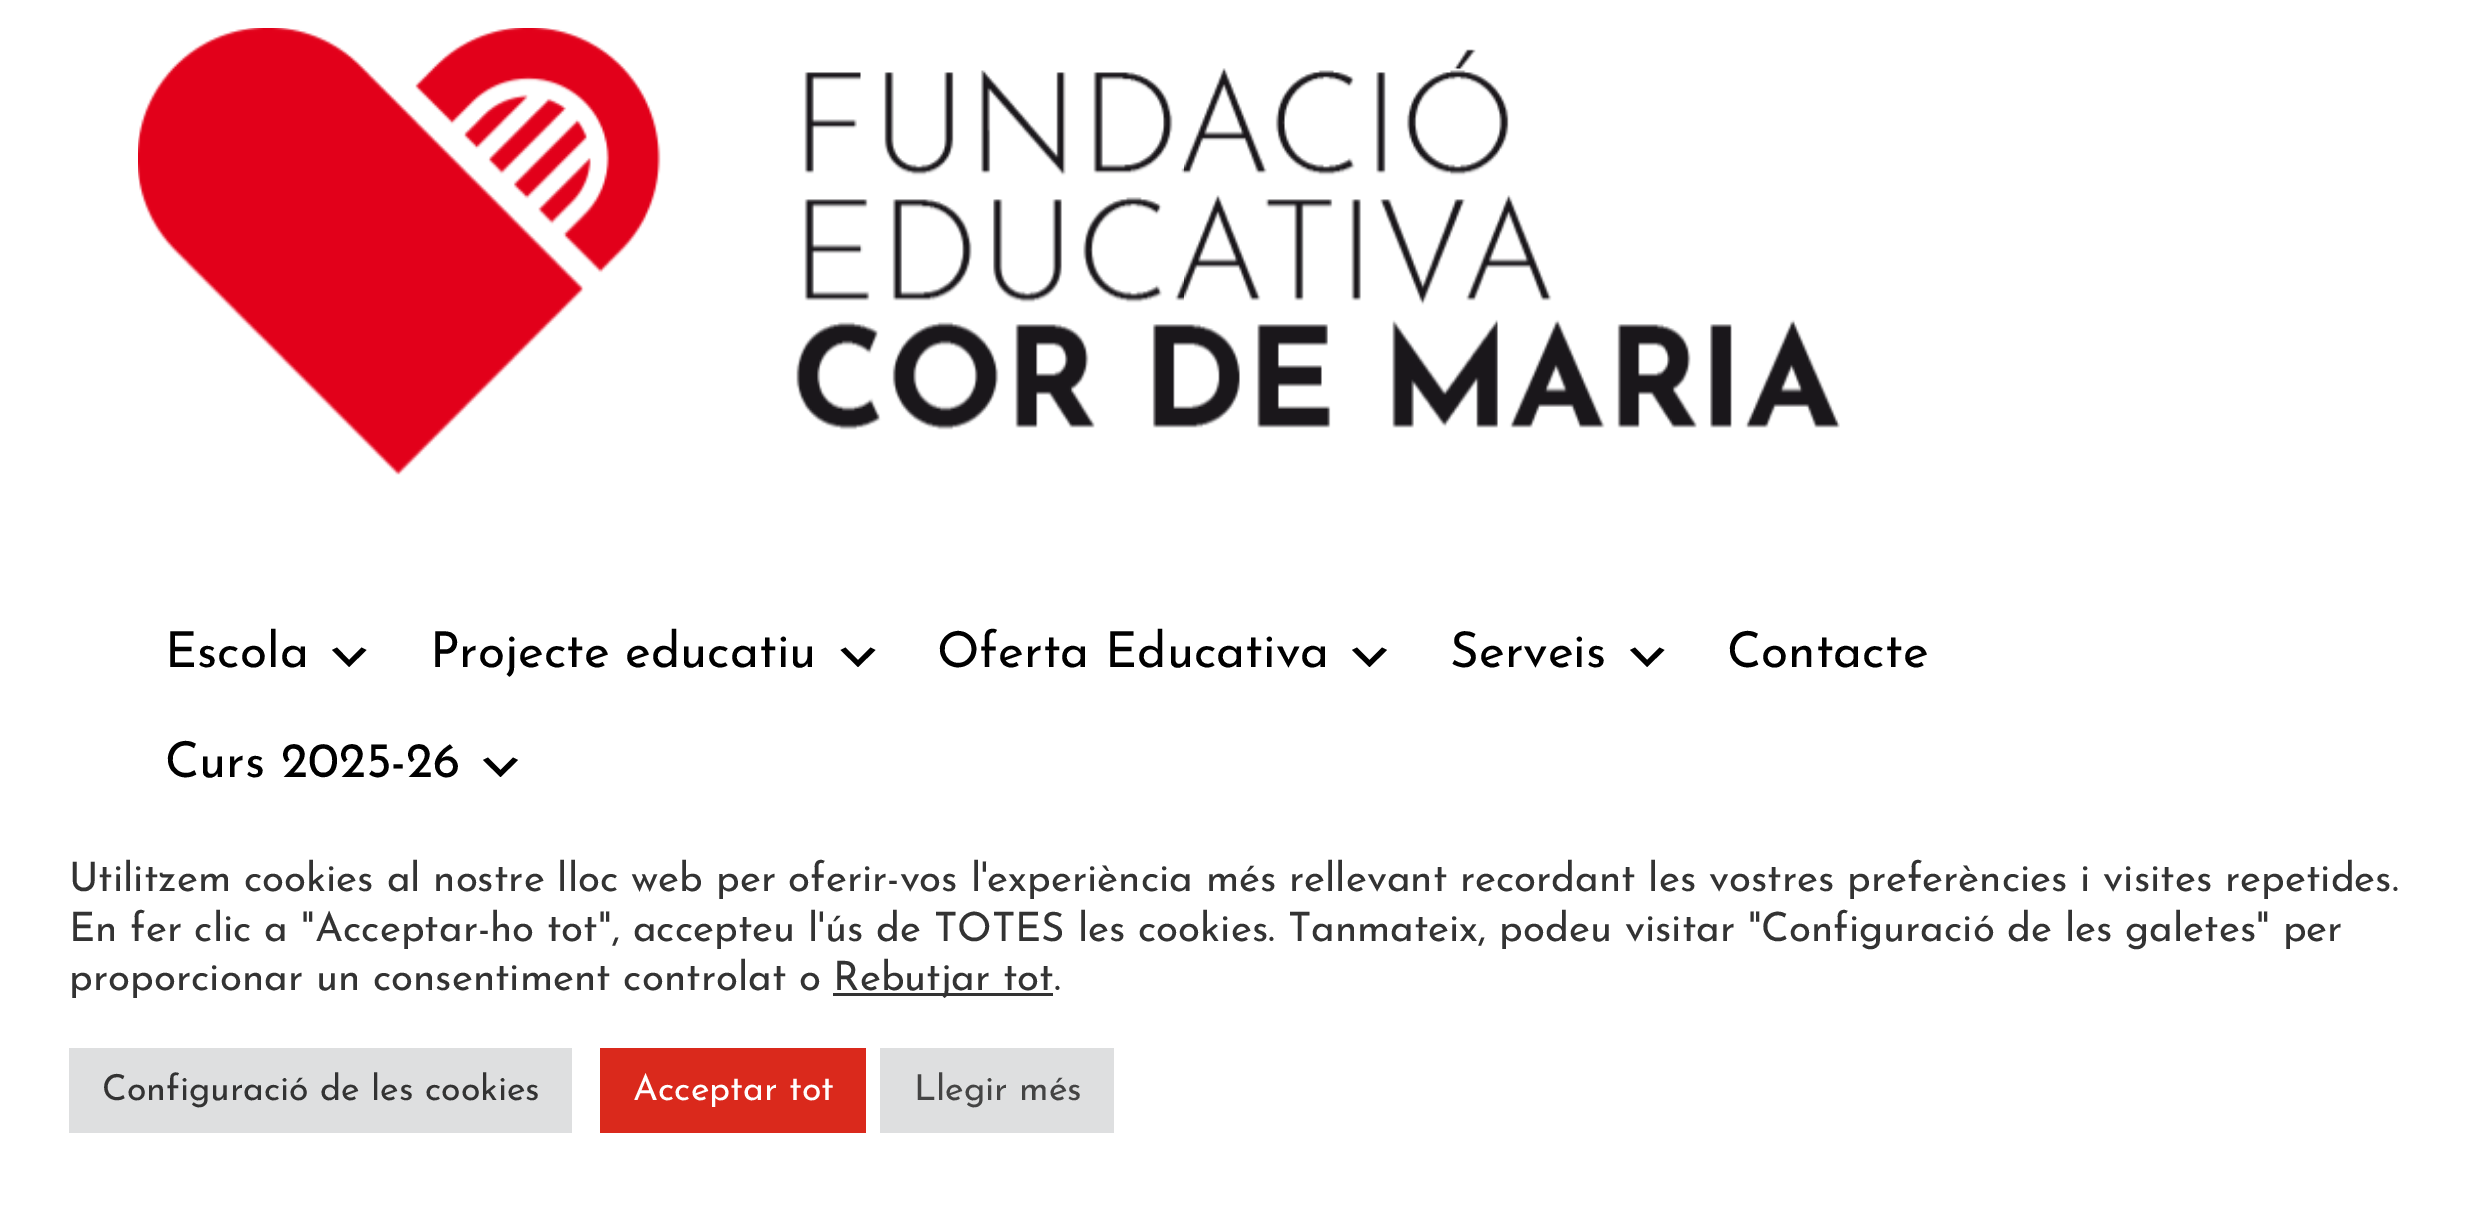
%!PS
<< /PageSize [2472 1213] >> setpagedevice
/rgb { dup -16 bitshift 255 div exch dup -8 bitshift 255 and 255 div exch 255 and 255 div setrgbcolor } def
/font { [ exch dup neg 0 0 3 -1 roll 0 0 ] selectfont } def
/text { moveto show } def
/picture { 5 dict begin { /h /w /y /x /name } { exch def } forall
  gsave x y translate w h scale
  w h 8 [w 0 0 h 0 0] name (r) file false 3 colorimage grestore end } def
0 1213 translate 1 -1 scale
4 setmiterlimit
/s1 { /JosefinSans-Regular 49.5 font 16#000000 rgb } def
/s2 { /JosefinSans-Regular 40.33 font 16#333333 rgb } def
/s3 { /JosefinSans-Regular 35.75 font 16#333333 rgb } def
/s4 { /JosefinSans-Regular 35.75 font 16#FFFFFF rgb } def
/s5 { /JosefinSans-Regular 35.75 font 16#444444 rgb } def
16#FFFFFF rgb
0 0 2472 1213 rectfill
(pic1.raw) 138 28 1702 447 picture
s1
(Escola) 165 667 text
337 647.5 moveto 349 660 lineto 361.5 647.5 lineto 366.5 650 lineto 349 667 lineto 332 650 lineto closepath fill
(Projecte educatiu) 430 667 text
845.5 647.5 moveto 858 660 lineto 870.5 647.5 lineto 875.5 650 lineto 858 667 lineto 840.5 650 lineto closepath fill
(Oferta Educativa) 937 667 text
1357 647.5 moveto 1369.5 660 lineto 1382 647.5 lineto 1387 650 lineto 1369.5 667 lineto 1352 650 lineto closepath fill
(Serveis) 1450 667 text
1635 647.5 moveto 1647 660 lineto 1659.5 647.5 lineto 1664.5 650 lineto 1647 667 lineto 1630 650 lineto closepath fill
(Contacte) 1727 667 text
(Curs 2025-26) 165 777 text
488 757.5 moveto 500.5 770 lineto 513 757.5 lineto 518 760 lineto 500.5 777 lineto 483 760 lineto closepath fill
s2
(Utilitzem cookies al nostre lloc web per oferir-vos l'experiència més rellevant recordant les vostres preferències i visites repetides.) 69 891 text
(En fer clic a "Acceptar-ho tot", accepteu l'ús de TOTES les cookies. Tanmateix, podeu visitar "Configuració de les galetes" per) 69 941 text
(proporcionar un consentiment controlat o) 69 990 text
833 993 220 3 rectfill
(Rebutjar tot.) 833 990 text
16#DEDFE0 rgb
69 1048 503 85 rectfill
s3
(Configuració de les cookies) 102 1100 text
16#DA291C rgb
600 1048 266 85 rectfill
s4
(Acceptar tot) 633 1100 text
16#DEDFE0 rgb
880 1048 234 85 rectfill
s5
(Llegir més) 914 1100 text
showpage
